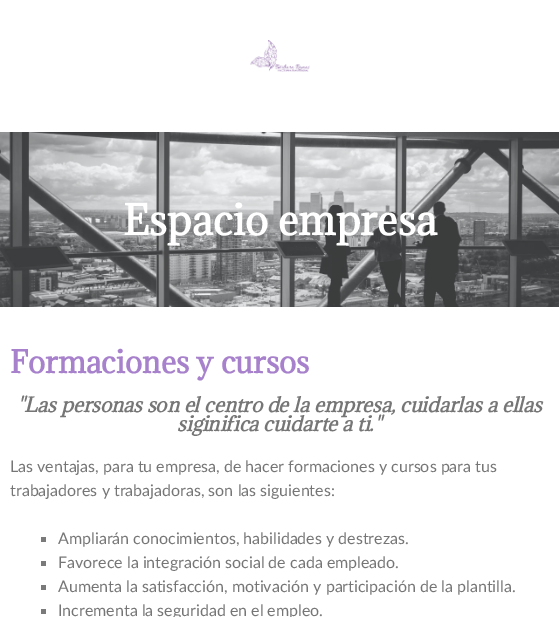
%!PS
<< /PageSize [559 617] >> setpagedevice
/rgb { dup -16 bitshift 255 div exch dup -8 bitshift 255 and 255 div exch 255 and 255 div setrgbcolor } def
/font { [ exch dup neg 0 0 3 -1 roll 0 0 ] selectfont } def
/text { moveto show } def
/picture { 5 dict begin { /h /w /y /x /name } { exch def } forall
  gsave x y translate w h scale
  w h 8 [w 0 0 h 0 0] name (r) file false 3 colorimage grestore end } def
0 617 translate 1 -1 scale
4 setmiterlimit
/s1 { /Adamina-Bold 39 font 16#FFFFFF rgb } def
/s2 { /Adamina-Bold 29 font 16#A781CB rgb } def
/s3 { /Adamina-BoldItalic 19 font 16#767676 rgb } def
/s4 { /Lato-Regular 16 font 16#767676 rgb } def
16#FFFFFF rgb
0 0 559 617 rectfill
(pic1.raw) 250 40 60 32 picture
(pic2.raw) 0 132 559 175 picture
s1
(Espacio empresa) 123 235 text
s2
(Formaciones y cursos) 10 373 text
s3
("Las personas son el centro de la empresa, cuidarlas a ellas) 17 412 text
(siginifica cuidarte a ti.") 177 431 text
s4
(Las ventajas, para tu empresa, de hacer formaciones y cursos para tus) 10 472 text
(trabajadores y trabajadoras, son las siguientes:) 10 496 text
16#7A7A7A rgb
41 537 5 5 rectfill
s4
(Ampliarán conocimientos, habilidades y destrezas.) 58 544 text
16#7A7A7A rgb
41 561 5 5 rectfill
s4
(Favorece la integración social de cada empleado.) 58 568 text
16#7A7A7A rgb
41 585 5 5 rectfill
s4
(Aumenta la satisfacción, motivación y participación de la plantilla.) 58 592 text
16#7A7A7A rgb
41 609 5 5 rectfill
s4
(Incrementa la seguridad en el empleo.) 58 616 text
showpage
